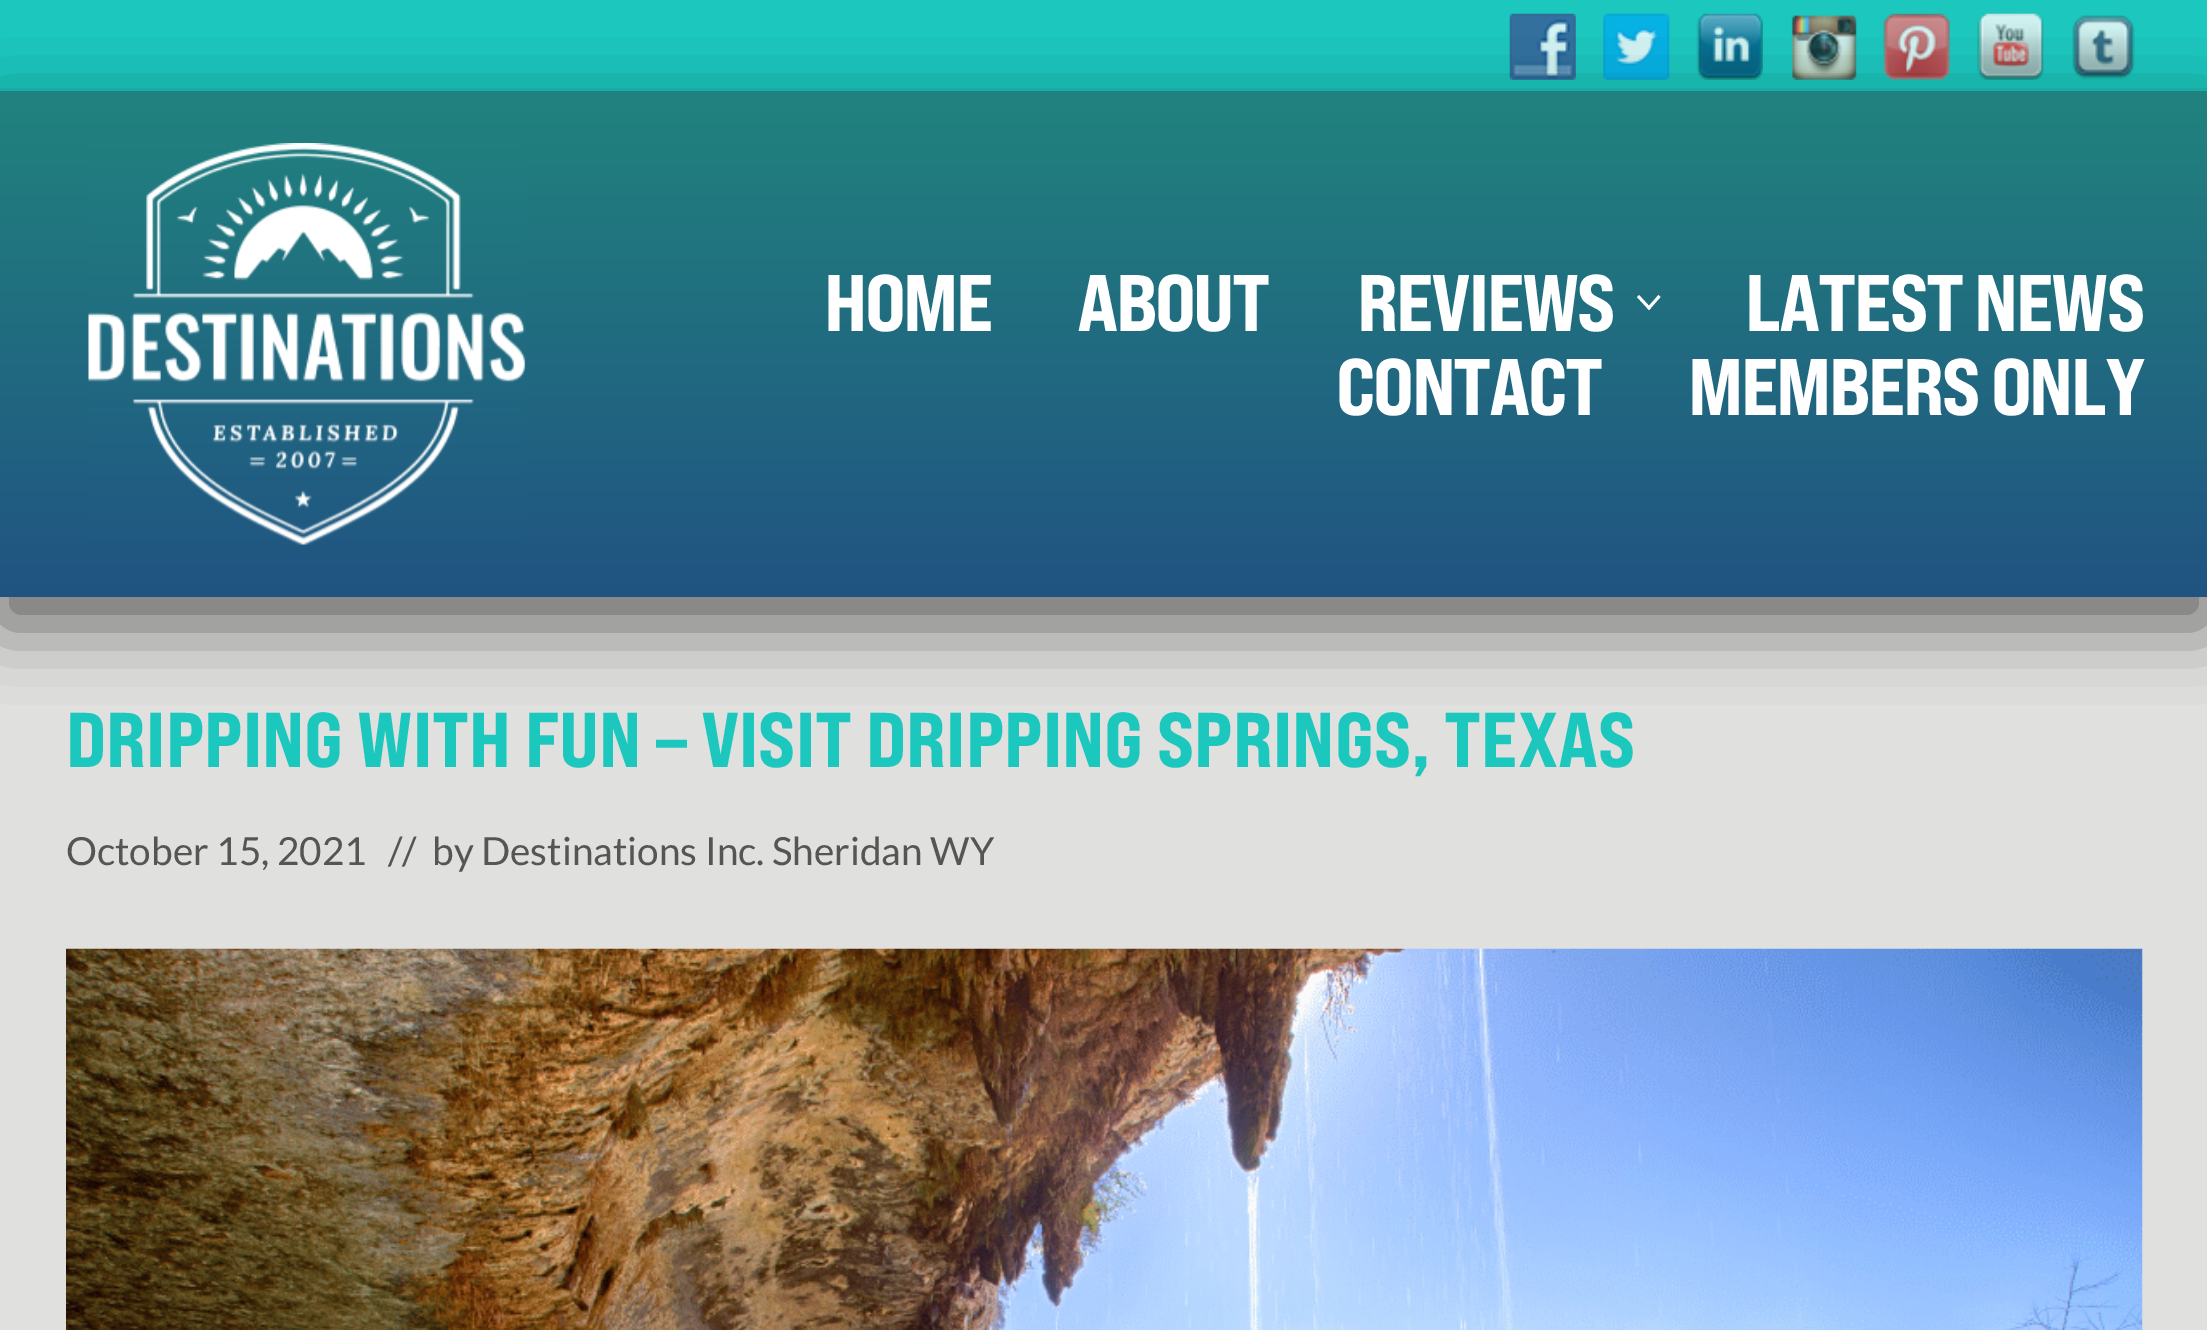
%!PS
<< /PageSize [2207 1330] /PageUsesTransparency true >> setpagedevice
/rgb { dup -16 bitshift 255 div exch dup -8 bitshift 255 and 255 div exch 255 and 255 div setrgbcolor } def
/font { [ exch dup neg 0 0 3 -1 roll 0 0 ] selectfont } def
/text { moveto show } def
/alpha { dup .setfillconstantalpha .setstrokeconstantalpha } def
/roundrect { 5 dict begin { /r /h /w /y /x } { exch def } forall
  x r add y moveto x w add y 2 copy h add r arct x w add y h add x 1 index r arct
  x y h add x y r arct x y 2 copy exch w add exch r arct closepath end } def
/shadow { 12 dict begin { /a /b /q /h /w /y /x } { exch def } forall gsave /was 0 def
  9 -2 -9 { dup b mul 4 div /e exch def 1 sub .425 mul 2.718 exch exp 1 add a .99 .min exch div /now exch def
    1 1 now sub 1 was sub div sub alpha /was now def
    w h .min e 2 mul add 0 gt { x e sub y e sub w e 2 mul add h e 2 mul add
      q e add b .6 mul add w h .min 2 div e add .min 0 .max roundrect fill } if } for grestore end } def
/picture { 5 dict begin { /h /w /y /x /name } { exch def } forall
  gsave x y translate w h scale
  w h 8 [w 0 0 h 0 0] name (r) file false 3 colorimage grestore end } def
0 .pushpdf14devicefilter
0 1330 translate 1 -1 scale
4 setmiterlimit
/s1 { /BebasNeue-ExtraBold 77.4 font 16#1CC7BE rgb } def
/s2 { /Lato-Regular 38.75 font 16#555555 rgb } def
16#E0E0DE rgb
0 0 2207 1330 rectfill
16#1CC7BE rgb
0 0 2207 88 rectfill
16#1BBDB5 rgb
0 88 2207 3 rectfill
(pic1.raw) 1509 13 67 67 picture
(pic2.raw) 1603 13 67 67 picture
(pic3.raw) 1696 13 67 67 picture
(pic4.raw) 1791 15 66 65 picture
(pic5.raw) 1883 13 67 67 picture
(pic6.raw) 1977 13 67 67 picture
(pic7.raw) 2072 15 63 65 picture
16#000000 rgb
0 118 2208 506 0 36 0.56 shadow
gsave 0 91 moveto 2207 91 lineto 2207 597 lineto 0 597 lineto closepath clip newpath
<< /ShadingType 2 /ColorSpace /DeviceRGB /Coords [1104 91 1104 597] /Extend [true true] /Function << /FunctionType 2 /Domain [0 1] /C0 [0.125 0.514 0.494] /C1 [0.125 0.325 0.51] /N 1 >> >> shfill grestore
(pic8.raw) 88 143 438 402 picture
/BebasNeue-ExtraBold 80 font
16#FFFFFF rgb
824 331 moveto -2.5 0 (HOME) ashow
1077 331 moveto -2.5 0 (ABOUT) ashow
1357 331 moveto -2.25 0 (REVIEWS) ashow
1658.5 295 moveto 1660.5 297 lineto 1649 310 lineto 1647 308 lineto closepath fill
1639 295 moveto 1651 308 lineto 1649 310 lineto 1637 297 lineto closepath fill
1745 331 moveto -2.1 0 (LATEST NEWS) ashow
1336 415 moveto -2.25 0 (CONTACT) ashow
1688 415 moveto -2.25 0 (MEMBERS ONLY) ashow
s1
(DRIPPING WITH FUN – VISIT DRIPPING SPRINGS, TEXAS) 66 767 text
s2
(October 15, 2021) 66 865 text
(//  by) 388 865 text
(Destinations Inc. Sheridan WY) 481 865 text
(pic9.raw) 66 948 2077 382 picture
.poppdf14devicefilter showpage
